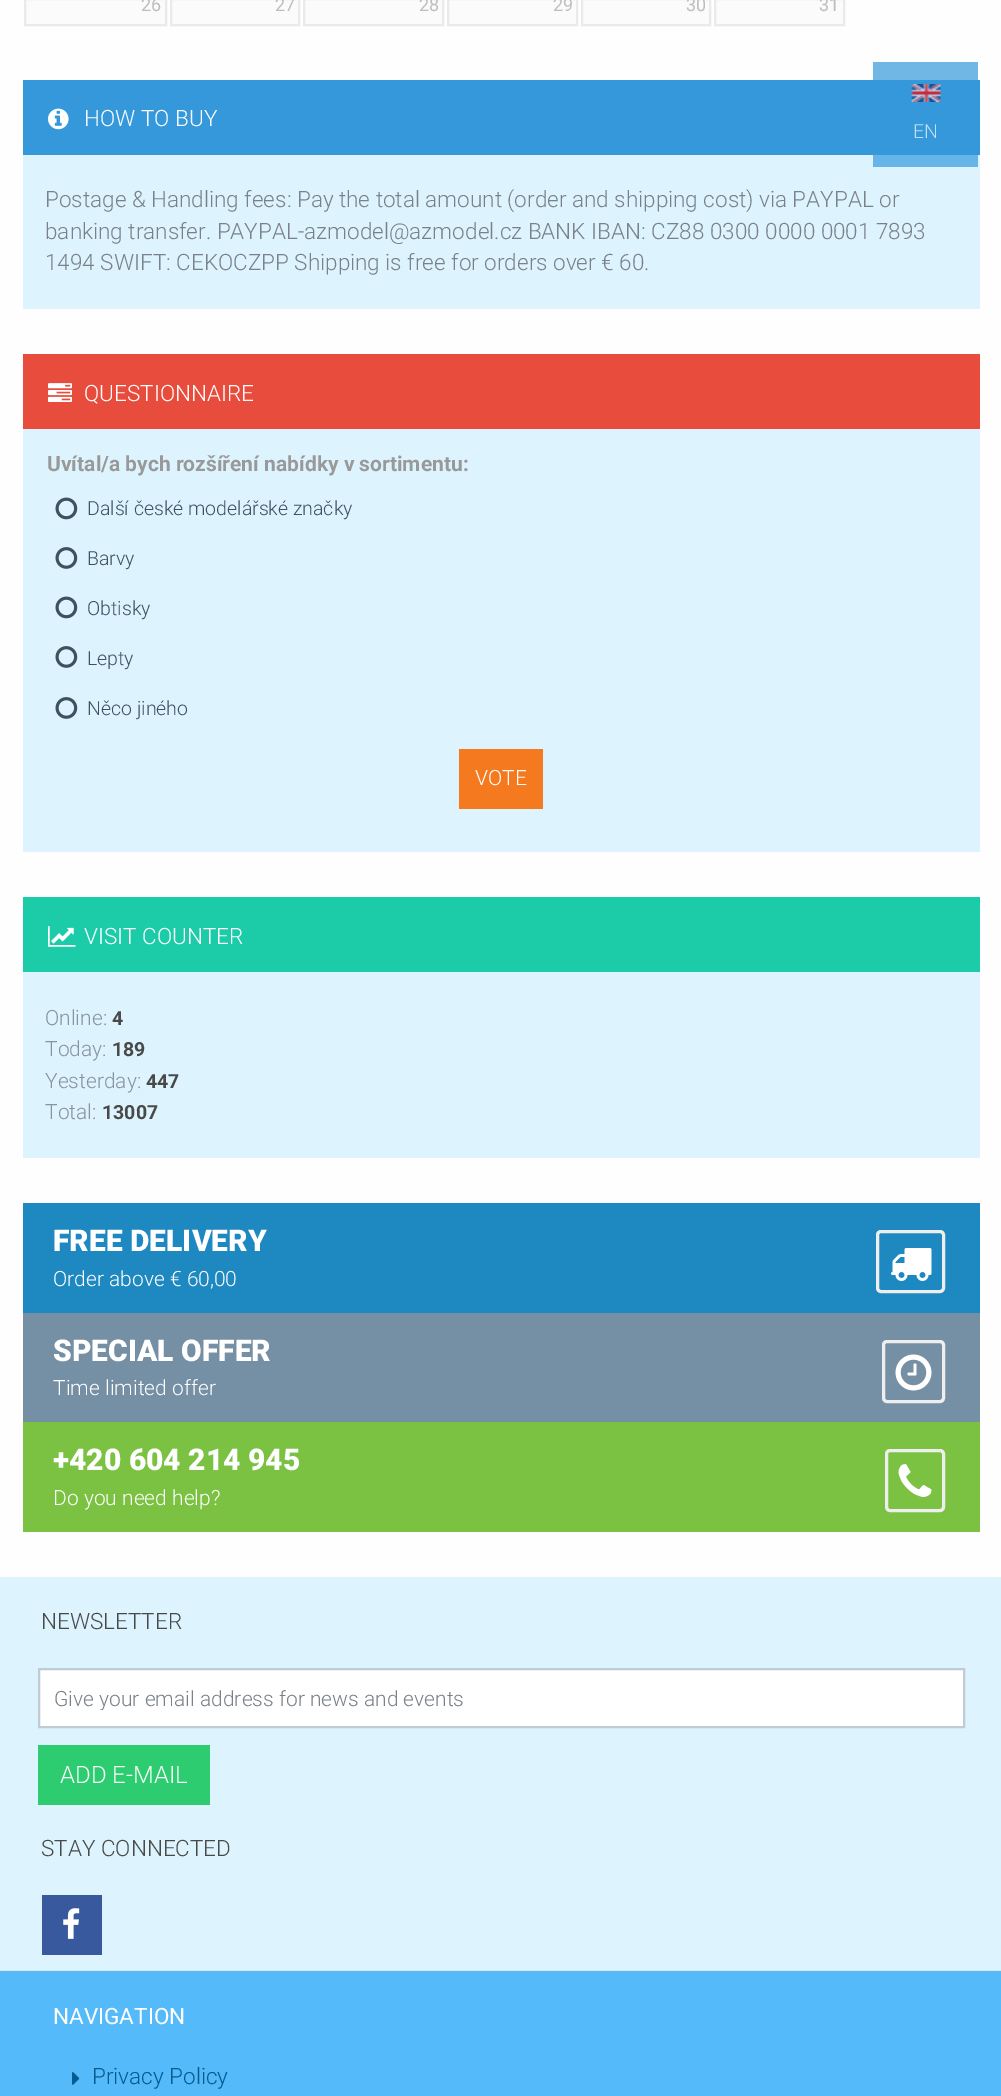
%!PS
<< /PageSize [1001 2096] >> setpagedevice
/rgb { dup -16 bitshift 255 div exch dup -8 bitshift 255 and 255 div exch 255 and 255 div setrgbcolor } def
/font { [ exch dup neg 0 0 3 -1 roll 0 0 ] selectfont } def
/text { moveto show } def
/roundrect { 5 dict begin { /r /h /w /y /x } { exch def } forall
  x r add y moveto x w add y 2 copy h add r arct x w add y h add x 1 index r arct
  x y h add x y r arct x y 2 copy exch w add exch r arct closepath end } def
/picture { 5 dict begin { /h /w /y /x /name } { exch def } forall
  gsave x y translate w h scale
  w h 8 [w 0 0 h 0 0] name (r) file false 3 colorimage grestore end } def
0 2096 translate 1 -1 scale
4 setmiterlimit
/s1 { /Roboto-Regular 18 font 16#BDBDBE rgb } def
/s2 { /Roboto-Light 22.5 font 16#FFFFFF rgb } def
/s3 { /Roboto-Light 22.5 font 16#7A8188 rgb } def
/s4 { /Roboto-Bold 21 font 16#999999 rgb } def
/s5 { /Roboto-Light 19.5 font 16#3F515F rgb } def
/s6 { /Roboto-Light 21 font 16#FFFFFF rgb } def
/s7 { /Roboto-Light 21 font 16#89939E rgb } def
/s8 { /Roboto-Bold 19.5 font 16#494949 rgb } def
/s9 { /Roboto-Light 19.5 font 16#C2E0F4 rgb } def
/s10 { /Roboto-Black 30 font 16#FFFFFF rgb } def
/s11 { /Roboto-Light 22.5 font 16#494949 rgb } def
/s12 { /Roboto-Light 21 font 16#7A8188 rgb } def
/s13 { /Roboto-Light 24 font 16#FFFFFF rgb } def
/s14 { /Roboto-Regular 22.5 font 16#FFFFFF rgb } def
/s15 { /Roboto-Light 22.5 font 16#055B8F rgb } def
16#FEFEFF rgb
0 0 1001 2096 rectfill
16#71B7E6 rgb
873 62 105 18 rectfill
16#FBFBFC rgb
25 -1 moveto 166 -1 lineto 166 25 lineto 25 25 lineto closepath gsave fill grestore
16#EAEAEB rgb
2 setlinewidth
stroke
s1
(26) 141 11 text
16#FBFBFC rgb
171 -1 moveto 299 -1 lineto 299 25 lineto 171 25 lineto closepath gsave fill grestore
16#EAEAEB rgb
stroke
s1
(27) 275 11 text
16#FBFBFC rgb
304 -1 moveto 443 -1 lineto 443 25 lineto 304 25 lineto closepath gsave fill grestore
16#EAEAEB rgb
stroke
s1
(28) 419 11 text
16#FBFBFC rgb
448 -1 moveto 577 -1 lineto 577 25 lineto 448 25 lineto closepath gsave fill grestore
16#EAEAEB rgb
stroke
s1
(29) 553 11 text
16#FBFBFC rgb
582 -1 moveto 710 -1 lineto 710 25 lineto 582 25 lineto closepath gsave fill grestore
16#EAEAEB rgb
stroke
s1
(30) 686 11 text
16#FBFBFC rgb
715 -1 moveto 844 -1 lineto 844 25 lineto 715 25 lineto closepath gsave fill grestore
16#EAEAEB rgb
stroke
s1
(31) 819 11 text
16#3498DB rgb
23 80 957 75 rectfill
(pic1.raw) 48 108 21 22 picture
s2
(HOW TO BUY) 84 126 text
16#DDF4FF rgb
23 155 957 154 rectfill
16#67B4E6 rgb
873 155 105 12 rectfill
s3
(Postage & Handling fees: Pay the total amount \(order and shipping cost\) via PAYPAL or) 45 207 text
(banking transfer. PAYPAL-azmodel@azmodel.cz BANK IBAN: CZ88 0300 0000 0001 7893) 45 239 text
(1494 SWIFT: CEKOCZPP Shipping is free for orders over € 60.) 45 270 text
16#E74C3C rgb
23 354 957 75 rectfill
(pic2.raw) 48 383 24 19 picture
s2
(QUESTIONNAIRE) 84 401 text
16#DDF4FF rgb
23 429 957 423 rectfill
s4
(Uvítal/a bych rozšíření nabídky v sortimentu:) 47 471 text
(pic3.raw) 55 497 23 23 picture
s5
(Další české modelářské značky) 87 515 text
(pic4.raw) 55 547 23 22 picture
(Barvy) 87 565 text
(pic3.raw) 55 596 23 23 picture
(Obtisky) 87 615 text
(pic4.raw) 55 646 23 22 picture
(Lepty) 87 665 text
(pic4.raw) 55 697 23 22 picture
(Něco jiného) 87 715 text
16#F5791F rgb
459 749 84 60 rectfill
s6
(VOTE) 475 785 text
16#1CCCA9 rgb
23 897 957 75 rectfill
(pic5.raw) 48 926 28 21 picture
s2
(VISIT COUNTER) 84 944 text
16#DDF4FF rgb
23 972 957 186 rectfill
s7
(Online:) 45 1025 text
s8
(4) 112 1025 text
s7
(Today:) 45 1056 text
s8
(189) 112 1056 text
s7
(Yesterday:) 45 1088 text
s8
(447) 146 1088 text
s7
(Total:) 45 1119 text
s8
(13007) 102 1119 text
(pic6.raw) 911 84 30 18 picture
s9
(EN) 913 138 text
16#1E88C1 rgb
23 1203 957 110 rectfill
s10
(FREE DELIVERY) 53 1251 text
16#EEEEEE rgb
3 setlinewidth
877.5 1231.5 66 60 3.5 roundrect stroke
(pic7.raw) 891 1248 41 33 picture
s6
(Order above € 60,00) 53 1286 text
16#758FA4 rgb
23 1313 957 109 rectfill
s10
(SPECIAL OFFER) 53 1361 text
16#EEEEEE rgb
883.5 1341.5 60 60 3.5 roundrect stroke
(pic8.raw) 895 1354 37 37 picture
s6
(Time limited offer) 53 1395 text
16#7BC242 rgb
23 1422 957 110 rectfill
s10
(+420 604 214 945) 53 1470 text
16#EEEEEE rgb
886.5 1450.5 57 60 3.5 roundrect stroke
(pic9.raw) 898 1464 34 33 picture
s6
(Do you need help?) 53 1505 text
16#DDF4FF rgb
0 1577 1001 393 rectfill
16#DFE6F3 rgb
0 1970 1001 1 rectfill
s11
(NEWSLETTER) 41 1629 text
16#FFFFFF rgb
39 1669 moveto 964 1669 lineto 964 1727 lineto 39 1727 lineto closepath gsave fill grestore
16#BFCBD5 rgb
2 setlinewidth
stroke
gsave
54 1686 894 24 rectclip
s12
(Give your email address for news and events) 54 1706 text
grestore
16#2ECC71 rgb
38 1745 172 60 rectfill
s13
(ADD E-MAIL) 60 1783 text
s11
(STAY CONNECTED) 41 1856 text
16#39599F rgb
42 1895 60 60 rectfill
(pic10.raw) 63 1908 17 31 picture
16#54BAFA rgb
0 1971 1001 125 rectfill
s14
(NAVIGATION) 53 2024 text
(pic11.raw) 72 2072 8 13 picture
s15
(Privacy Policy) 92 2084 text
showpage
